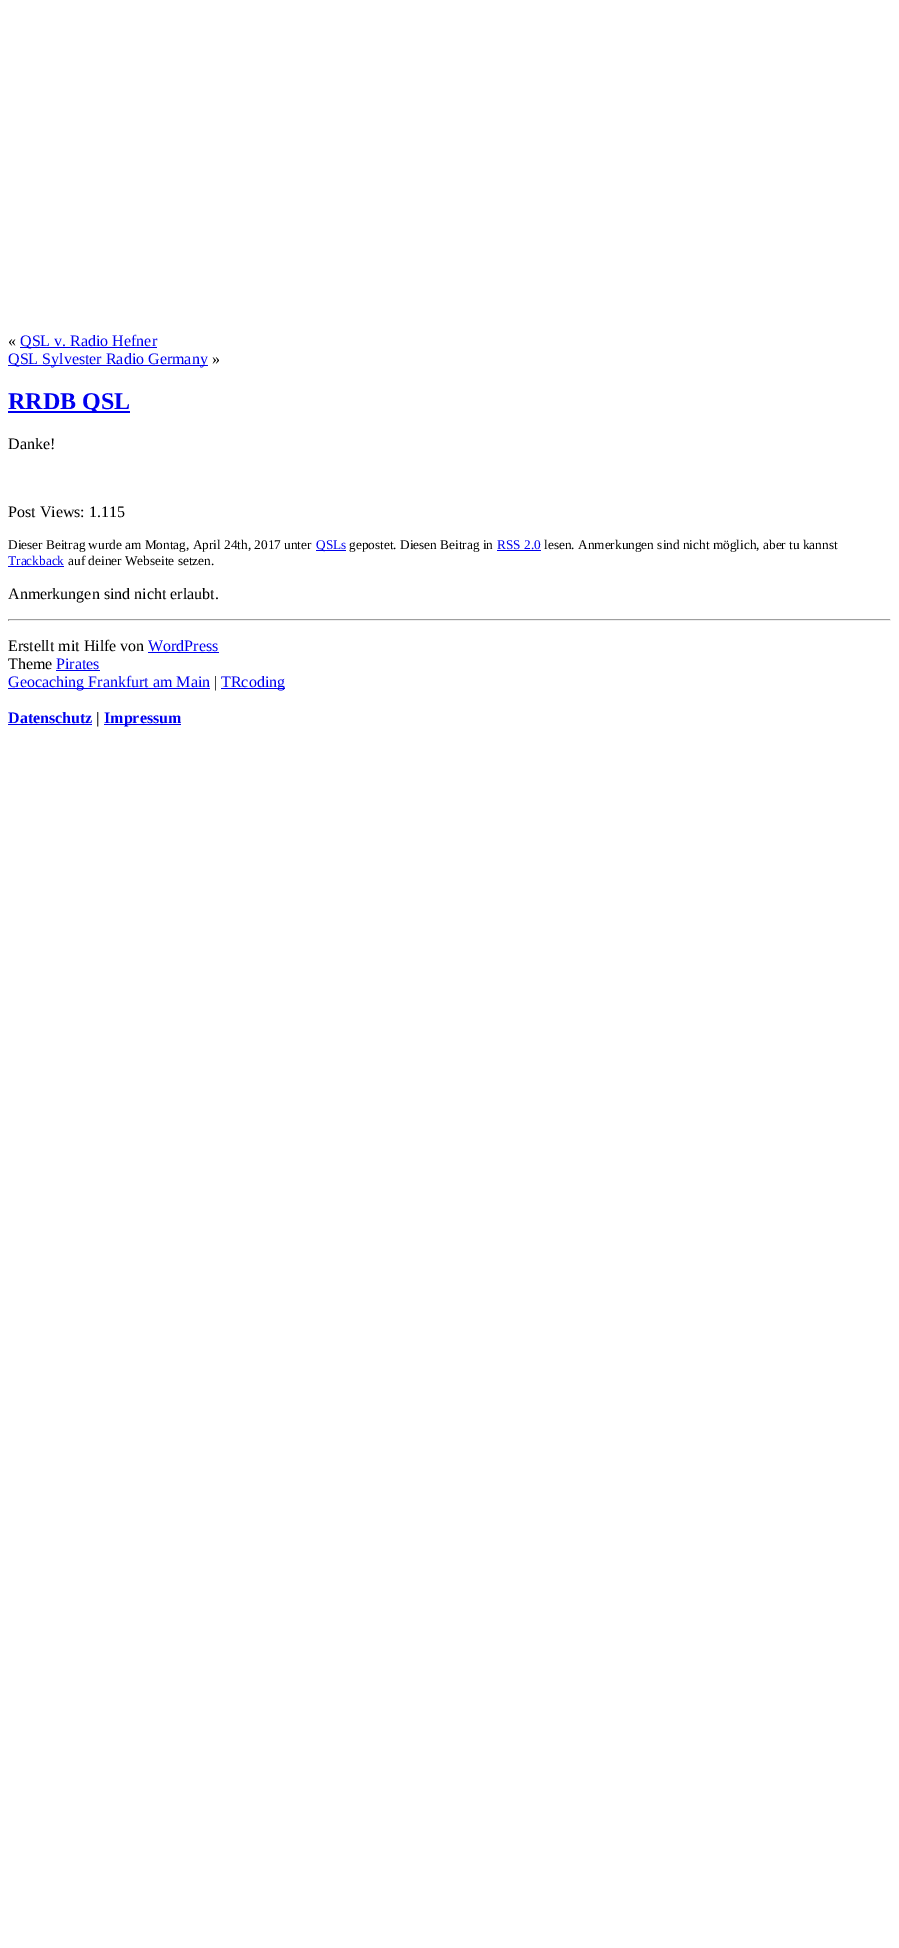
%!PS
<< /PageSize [899 1948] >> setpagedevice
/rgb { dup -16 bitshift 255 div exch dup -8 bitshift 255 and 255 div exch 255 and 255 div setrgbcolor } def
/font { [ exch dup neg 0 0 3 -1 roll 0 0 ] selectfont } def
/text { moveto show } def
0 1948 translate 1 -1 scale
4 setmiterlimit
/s1 { /LiberationSerif-Regular 16 font 16#000000 rgb } def
/s2 { /LiberationSerif-Regular 16 font 16#0000EE rgb } def
/s3 { /LiberationSerif-Bold 24 font 16#0000EE rgb } def
/s4 { /LiberationSerif-Regular 13.3 font 16#000000 rgb } def
/s5 { /LiberationSerif-Regular 13.3 font 16#0000EE rgb } def
/s6 { /LiberationSerif-Bold 16 font 16#0000EE rgb } def
/s7 { /LiberationSerif-Bold 16 font 16#000000 rgb } def
16#FFFFFF rgb
0 0 899 1948 rectfill
s1
(«) 8 346 text
16#0000EE rgb
20 347 137 1 rectfill
(QSL v. Radio Hefner) 20 346 text
8 365 200 1 rectfill
(QSL Sylvester Radio Germany) 8 364 text
s1
(») 212 364 text
16#0000EE rgb
8 411 122 2 rectfill
s3
(RRDB QSL) 8 409 text
s1
(Danke!) 8 449 text
(Post Views: 1.115) 8 517 text
s4
(Dieser Beitrag wurde am Montag, April 24th, 2017 unter) 8 549 text
16#0000EE rgb
316 550 30 1 rectfill
(QSLs) 316 549 text
s4
(gepostet. Diesen Beitrag in) 349 549 text
s5
(RSS 2.0) 497 549 text
497 550 44 1 rectfill
s4
(lesen. Anmerkungen sind nicht möglich, aber tu kannst) 544 549 text
s5
(Trackback) 8 565 text
8 566 56 1 rectfill
s4
(auf deiner Webseite setzen.) 68 565 text
s1
(Anmerkungen sind nicht erlaubt.) 8 599 text
16#9F9F9F rgb
8 619 883 1 rectfill
16#EEEEEE rgb
890 619 1 2 rectfill
8 620 883 1 rectfill
16#9F9F9F rgb
8 619 1 2 rectfill
s1
(Erstellt mit Hilfe von) 8 651 text
s2
(WordPress) 148 651 text
148 652 71 1 rectfill
s1
(Theme) 8 669 text
s2
(Pirates) 56 669 text
56 670 44 1 rectfill
8 688 202 1 rectfill
(Geocaching Frankfurt am Main) 8 687 text
s1
(|) 214 687 text
16#0000EE rgb
221 688 64 1 rectfill
(TRcoding) 221 687 text
s6
(Datenschutz) 8 723 text
8 724 84 1 rectfill
s7
(|) 96 723 text
16#0000EE rgb
104 724 77 1 rectfill
(Impressum) 104 723 text
showpage
